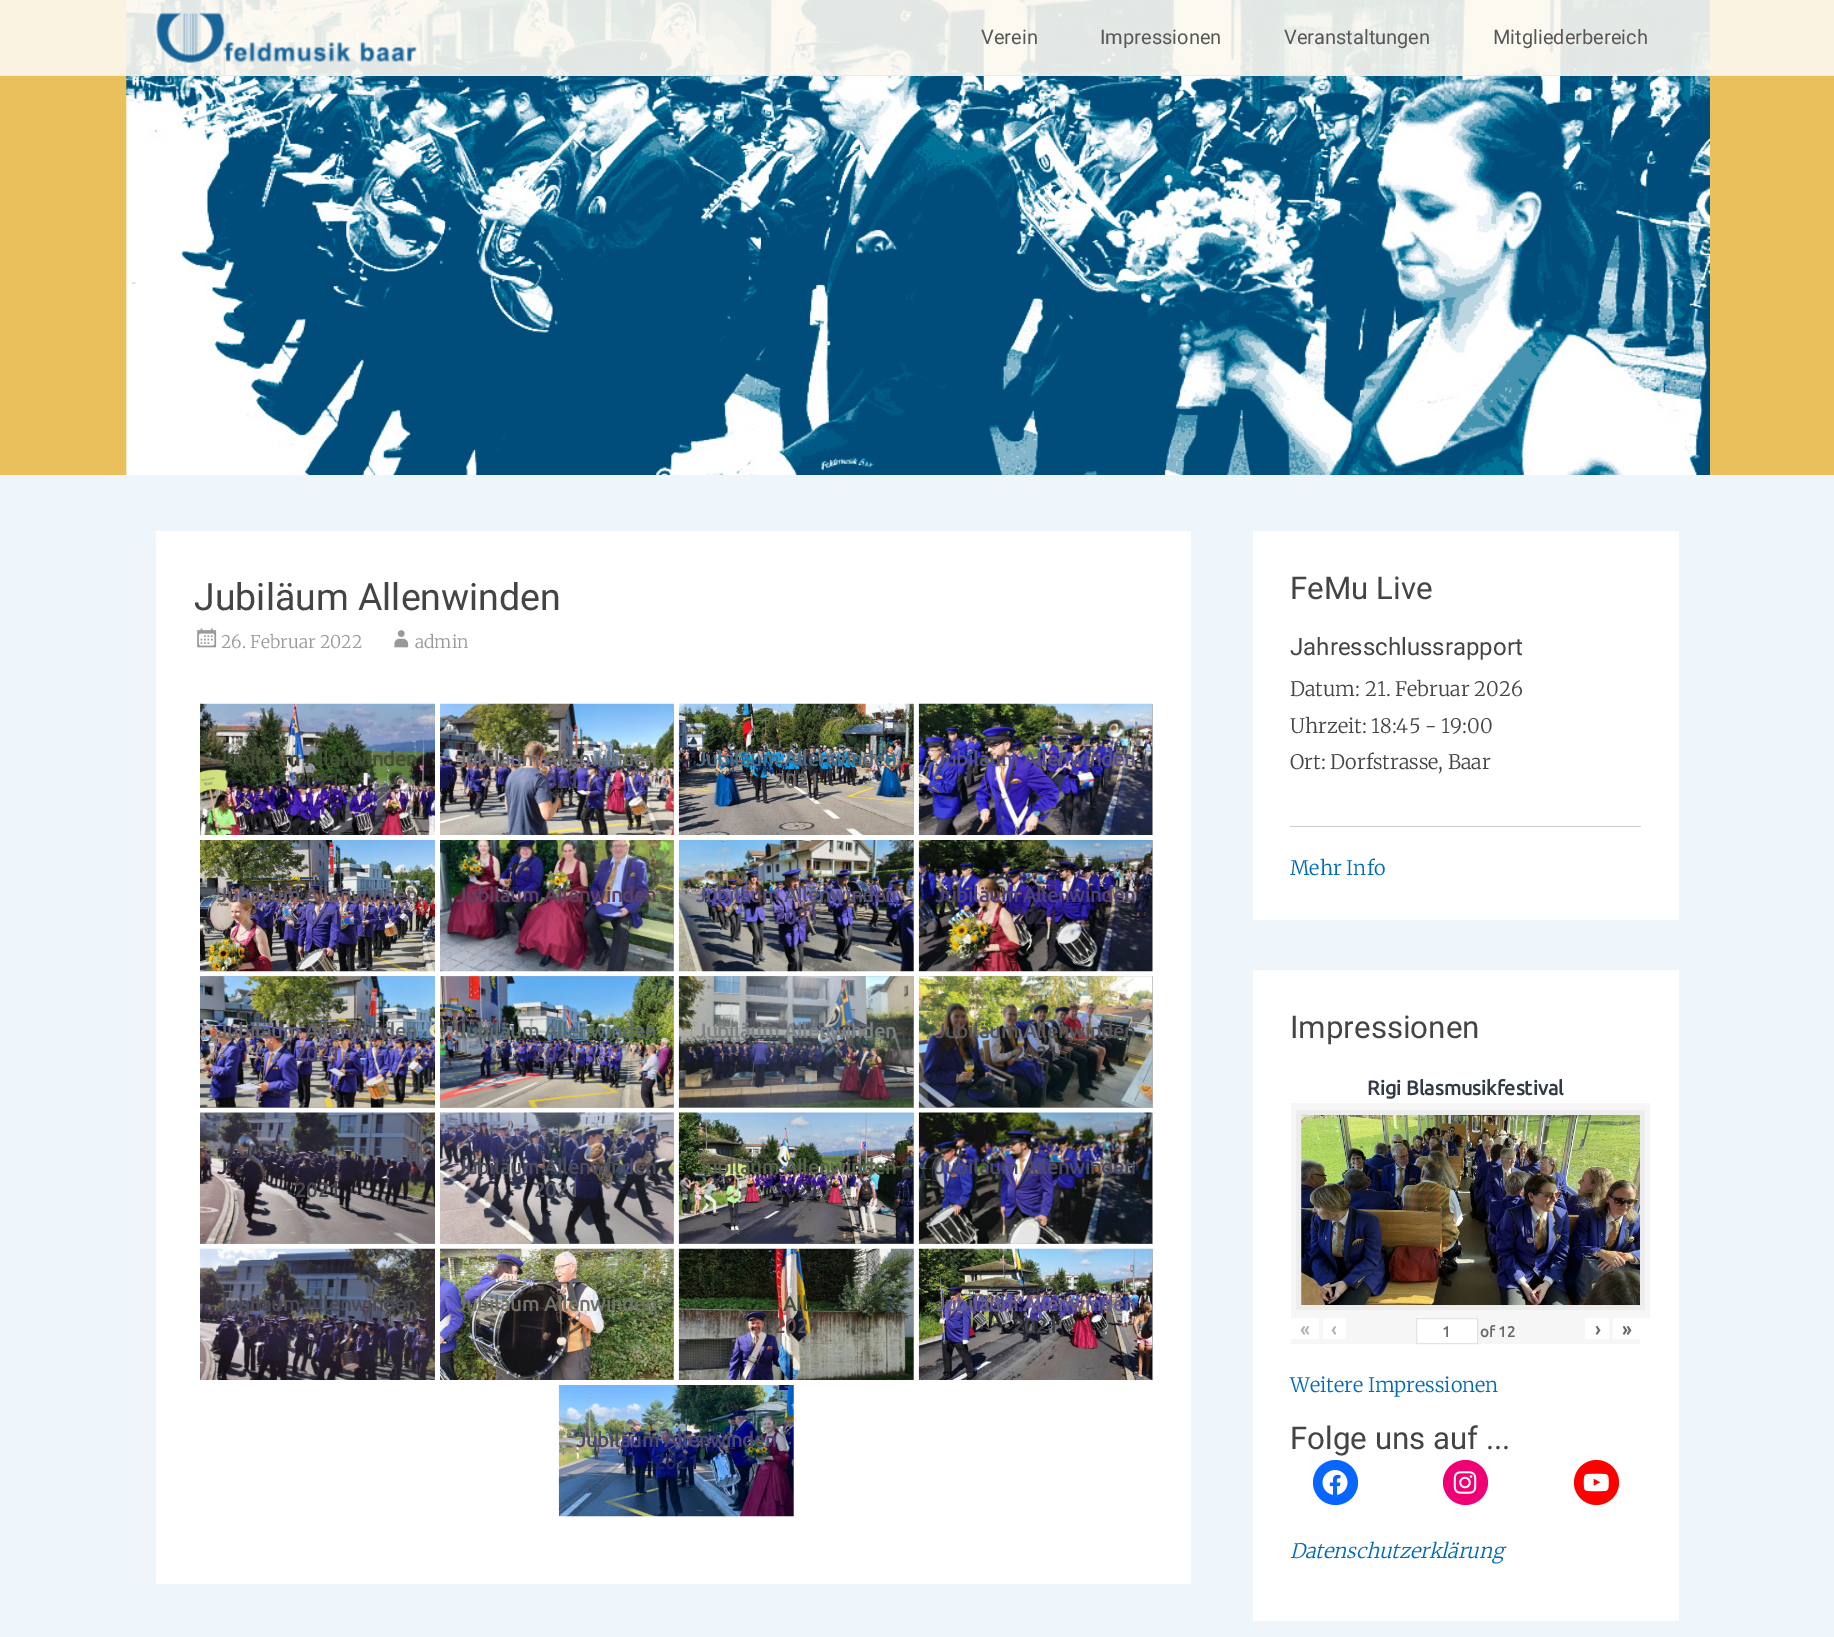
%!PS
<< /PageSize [1834 1637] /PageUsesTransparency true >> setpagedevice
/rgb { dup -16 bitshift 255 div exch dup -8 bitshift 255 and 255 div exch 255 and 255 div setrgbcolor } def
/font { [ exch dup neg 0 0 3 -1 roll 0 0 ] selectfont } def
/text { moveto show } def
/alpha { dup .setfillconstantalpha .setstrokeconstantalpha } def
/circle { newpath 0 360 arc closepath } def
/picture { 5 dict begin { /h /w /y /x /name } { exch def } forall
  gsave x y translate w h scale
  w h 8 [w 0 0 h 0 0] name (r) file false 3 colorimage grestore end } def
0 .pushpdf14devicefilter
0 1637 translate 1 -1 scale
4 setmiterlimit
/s1 { /Roboto-Regular 20 font 16#585657 rgb } def
/s2 { /Roboto-Regular 37.5 font 16#444444 rgb } def
/s3 { /Merriweather-Light 17.5 font 16#999999 rgb } def
/s4 { /Ubuntu-Bold 20 font 16#435036 rgb } def
/s5 { /Ubuntu-Bold 20 font 16#41433C rgb } def
/s6 { /Ubuntu-Bold 20 font 16#716F6F rgb } def
/s7 { /Ubuntu-Bold 20 font 16#46456F rgb } def
/s8 { /Ubuntu-Bold 20 font 16#4C6C81 rgb } def
/s9 { /Ubuntu-Bold 20 font 16#6B6865 rgb } def
/s10 { /Ubuntu-Bold 20 font 16#575187 rgb } def
/s11 { /Ubuntu-Bold 20 font 16#655C65 rgb } def
/s12 { /Ubuntu-Bold 20 font 16#5F579A rgb } def
/s13 { /Ubuntu-Bold 20 font 16#5F415F rgb } def
/s14 { /Ubuntu-Bold 20 font 16#58527B rgb } def
/s15 { /Ubuntu-Bold 20 font 16#514875 rgb } def
/s16 { /Ubuntu-Bold 20 font 16#4E4276 rgb } def
/s17 { /Ubuntu-Bold 20 font 16#302849 rgb } def
/s18 { /Ubuntu-Bold 20 font 16#65636D rgb } def
/s19 { /Ubuntu-Bold 20 font 16#584C72 rgb } def
/s20 { /Ubuntu-Bold 20 font 16#5C6C69 rgb } def
/s21 { /Ubuntu-Bold 20 font 16#7C8182 rgb } def
/s22 { /Ubuntu-Bold 20 font 16#585657 rgb } def
/s23 { /Ubuntu-Bold 20 font 16#4A464E rgb } def
/s24 { /Ubuntu-Bold 20 font 16#332E3D rgb } def
/s25 { /Ubuntu-Bold 20 font 16#4E4D5C rgb } def
/s26 { /Ubuntu-Bold 20 font 16#535462 rgb } def
/s27 { /Ubuntu-Bold 20 font 16#5A614C rgb } def
/s28 { /Ubuntu-Bold 20 font 16#3A3251 rgb } def
/s29 { /Ubuntu-Bold 20 font 16#4C4A6C rgb } def
/s30 { /Ubuntu-Bold 20 font 16#494A56 rgb } def
/s31 { /Ubuntu-Bold 20 font 16#717368 rgb } def
/s32 { /Ubuntu-Bold 20 font 16#614E4F rgb } def
/s33 { /Ubuntu-Bold 20 font 16#655C88 rgb } def
/s34 { /Ubuntu-Bold 20 font 16#42424B rgb } def
/s35 { /Ubuntu-Bold 20 font 16#1C235F rgb } def
/s36 { /Roboto-Regular 31.25 font 16#444444 rgb } def
/s37 { /Roboto-Regular 24 font 16#444444 rgb } def
/s38 { /Merriweather-Light 20 font 16#444444 rgb } def
/s39 { /Merriweather-Light 20 font 16#006AB3 rgb } def
/s40 { /Ubuntu-Bold 20 font 16#323A45 rgb } def
/s41 { /Ubuntu-Bold 19 font 16#B3B3B3 rgb } def
/s42 { /Ubuntu-Bold 15 font 16#6B6865 rgb } def
/s43 { /Ubuntu-Bold 19 font 16#6B6865 rgb } def
/s44 { /Merriweather-LightItalic 20 font 16#006AB3 rgb } def
16#EAC05C rgb
0 0 1834 1637 rectfill
(pic1.raw) 126 0 1584 475 picture
0.9 alpha
16#FCF8F0 rgb
0 0 1834 76 rectfill
16#EAEAEA rgb
0 75 1834 1 rectfill
1 alpha
(pic2.raw) 156 12 261 51 picture
s1
(Verein) 981 44 text
(Impressionen) 1100 44 text
(Veranstaltungen) 1284 44 text
(Mitgliederbereich) 1493 44 text
16#EEF6FC rgb
0 475 1834 1162 rectfill
16#FFFFFF rgb
156 531 1035 1053 rectfill
s2
(Jubiläum Allenwinden) 194 610 text
(pic3.raw) 197 628 20 20 picture
s3
(26. Februar 2022) 221 648 text
(pic4.raw) 394 630 15 18 picture
(admin) 415 648 text
(pic5.raw) 200 703 235 132 picture
s4
(Jubiläum Allenwinden) 217 766 text
s5
(2021) 295 788 text
16#B3B3B3 rgb
673 704 1 131 rectfill
(pic6.raw) 440 703 234 132 picture
s6
(Jubiläum Allenwinden) 456 766 text
s7
(2021) 534 788 text
16#B3B3B3 rgb
913 704 1 131 rectfill
(pic7.raw) 678 703 236 132 picture
s8
(Jubiläum Allenwinden) 696 766 text
s9
(2021) 774 788 text
16#B3B3B3 rgb
1152 704 1 131 rectfill
(pic8.raw) 918 703 235 132 picture
s10
(Jubiläum Allenwinden) 935 766 text
(pic9.raw) 200 840 235 132 picture
s11
(Jubiläum Allenwinden) 217 902 text
s12
(2021) 295 924 text
16#B3B3B3 rgb
673 840 1 131 rectfill
(pic10.raw) 440 840 234 132 picture
s13
(Jubiläum Allenwinden) 456 902 text
16#B3B3B3 rgb
913 840 1 131 rectfill
(pic11.raw) 678 840 236 132 picture
s14
(Jubiläum Allenwinden) 696 902 text
s15
(2021) 774 924 text
16#B3B3B3 rgb
1152 840 1 131 rectfill
(pic12.raw) 918 840 235 132 picture
s16
(Jubiläum Allenwinden) 935 902 text
s17
(2021) 1013 924 text
16#B3B3B3 rgb
200 976 235 132 rectfill
(pic13.raw) 200 976 235 132 picture
s18
(Jubiläum Allenwinden) 217 1038 text
s19
(2021) 295 1061 text
16#B3B3B3 rgb
440 976 234 132 rectfill
(pic14.raw) 440 976 234 132 picture
s20
(Jubiläum Allenwinden) 456 1038 text
s15
(2021) 534 1061 text
16#B3B3B3 rgb
679 976 235 132 rectfill
(pic15.raw) 678 976 236 132 picture
s21
(Jubiläum Allenwinden) 696 1038 text
16#B3B3B3 rgb
919 976 234 132 rectfill
(pic16.raw) 918 976 235 132 picture
s22
(Jubiläum Allenwinden) 935 1038 text
s23
(2021) 1013 1061 text
(pic17.raw) 200 1112 235 132 picture
s24
(J) 217 1174 text
s23
(2021) 295 1197 text
16#B3B3B3 rgb
440 1113 234 131 rectfill
(pic18.raw) 440 1112 234 132 picture
s25
(Jubiläum Allenwinden) 456 1174 text
s26
(2021) 534 1197 text
16#B3B3B3 rgb
679 1113 235 131 rectfill
(pic19.raw) 678 1112 236 132 picture
s27
(Jubiläum Allenwinden) 696 1174 text
s28
(2021) 774 1197 text
16#B3B3B3 rgb
919 1113 234 131 rectfill
(pic20.raw) 918 1112 235 132 picture
s29
(Jubiläum Allenwinden) 935 1174 text
(pic21.raw) 200 1248 235 132 picture
s30
(Jubiläum Allenwinden) 217 1311 text
16#B3B3B3 rgb
673 1249 1 131 rectfill
(pic22.raw) 440 1248 234 132 picture
s31
(Jubiläum Allenwinden) 456 1311 text
16#B3B3B3 rgb
913 1249 1 131 rectfill
(pic23.raw) 678 1248 236 132 picture
s4
(All) 783 1311 text
s32
(2021) 774 1333 text
16#B3B3B3 rgb
1152 1249 1 131 rectfill
(pic24.raw) 918 1248 235 132 picture
s33
(Jubiläum Allenwinden) 935 1311 text
s34
(2021) 1013 1333 text
16#B3B3B3 rgb
793 1385 1 131 rectfill
(pic25.raw) 558 1385 236 132 picture
s29
(Jubiläum Allenwinden) 576 1447 text
s35
(2021) 654 1469 text
16#FFFFFF rgb
1253 531 426 389 rectfill
s36
(FeMu Live) 1290 599 text
16#CCCCCC rgb
1290 826 351 1 rectfill
s37
(Jahresschlussrapport) 1290 655 text
s38
(Datum: 21. Februar 2026) 1290 696 text
(Uhrzeit: 18:45 - 19:00) 1290 733 text
(Ort: Dorfstrasse, Baar) 1290 769 text
s39
(Mehr Info) 1290 875 text
16#FFFFFF rgb
1253 970 426 651 rectfill
s36
(Impressionen) 1290 1038 text
s40
(Rigi Blasmusikfestival) 1367 1095 text
16#F6F6F6 rgb
1291 1103 359 215 rectfill
16#EDEDED rgb
1296 1110 349 200 rectfill
(pic26.raw) 1301 1115 339 190 picture
16#F6F6F6 rgb
1291 1318 349 26 rectfill
16#FFFFFF rgb
1291 1318 28 21 rectfill
s41
(«) 1300 1336 text
16#FFFFFF rgb
1323 1318 23 21 rectfill
s41
(‹) 1331 1336 text
16#FFFFFF rgb
1416.5 1318.5 moveto 1477.5 1318.5 lineto 1477.5 1343.5 lineto 1416.5 1343.5 lineto closepath gsave fill grestore
16#E3E3E3 rgb
stroke
s42
(1) 1442 1337 text
(of 12) 1480 1337 text
16#FFFFFF rgb
1585 1318 24 21 rectfill
s43
(›) 1595 1336 text
16#FFFFFF rgb
1613 1318 27 21 rectfill
s43
(») 1622 1336 text
s39
(Weitere Impressionen) 1290 1392 text
s36
(Folge uns auf ...) 1290 1449 text
16#0866FF rgb
1335.5 1482.5 22.5 circle fill
(pic27.raw) 1322 1470 26 25 picture
16#F00075 rgb
1465.5 1482.5 22.5 circle fill
(pic28.raw) 1453 1471 24 23 picture
16#FF0000 rgb
1596.5 1482.5 22.5 circle fill
(pic29.raw) 1583 1473 26 19 picture
s44
(Datenschutzerklärung) 1290 1558 text
.poppdf14devicefilter showpage
